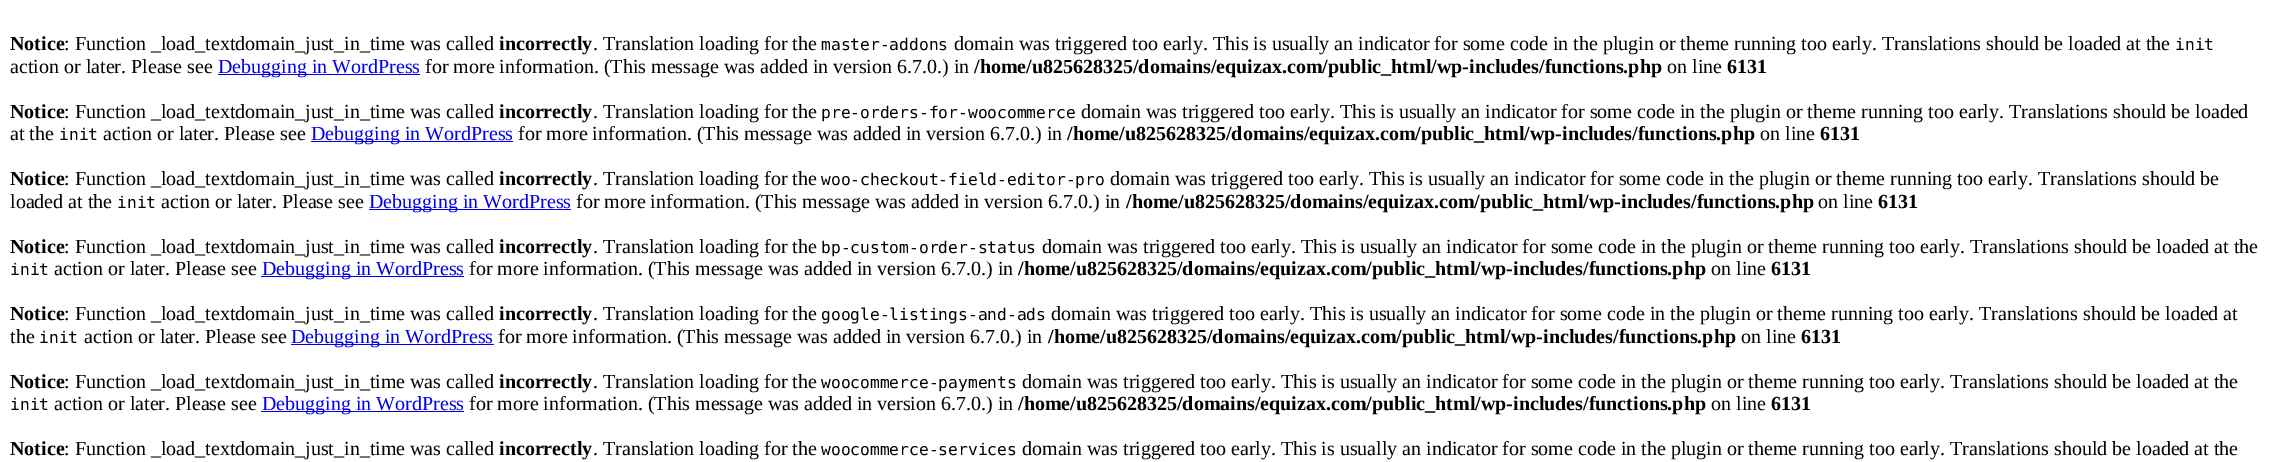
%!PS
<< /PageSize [2276 462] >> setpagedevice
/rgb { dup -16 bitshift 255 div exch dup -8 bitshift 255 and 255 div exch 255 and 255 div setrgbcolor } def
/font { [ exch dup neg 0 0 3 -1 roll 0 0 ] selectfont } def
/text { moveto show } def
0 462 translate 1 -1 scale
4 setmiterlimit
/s1 { /LiberationSerif-Bold 20 font 16#000000 rgb } def
/s2 { /LiberationSerif-Regular 20 font 16#000000 rgb } def
/s3 { /DejaVuSansMono-Regular 16.25 font 16#000000 rgb } def
/s4 { /LiberationSerif-Regular 20 font 16#0000EE rgb } def
16#FFFFFF rgb
0 0 2276 462 rectfill
s1
(Notice) 10 50 text
s2
(: Function _load_textdomain_just_in_time was called) 64 50 text
s1
(incorrectly) 499 50 text
s2
(. Translation loading for the) 593 50 text
s3
(master-addons) 821 50 text
s2
(domain was triggered too early. This is usually an indicator for some code in the plugin or theme running too early. Translations should be loaded at the) 954 50 text
s3
(init) 2175 50 text
s2
(action or later. Please see) 10 73 text
16#0000EE rgb
218 74 202 1 rectfill
(Debugging in WordPress) 218 73 text
s2
(for more information. \(This message was added in version 6.7.0.\) in) 425 73 text
s1
(/home/u825628325/domains/equizax.com/public_html/wp-includes/functions.php) 974 73 text
s2
(on line) 1667 73 text
s1
(6131) 1727 73 text
(Notice) 10 118 text
s2
(: Function _load_textdomain_just_in_time was called) 64 118 text
s1
(incorrectly) 499 118 text
s2
(. Translation loading for the) 593 118 text
s3
(pre-orders-for-woocommerce) 821 118 text
s2
(domain was triggered too early. This is usually an indicator for some code in the plugin or theme running too early. Translations should be loaded) 1081 118 text
(at the) 10 140 text
s3
(init) 59 140 text
s2
(action or later. Please see) 103 140 text
16#0000EE rgb
311 141 202 1 rectfill
(Debugging in WordPress) 311 140 text
s2
(for more information. \(This message was added in version 6.7.0.\) in) 518 140 text
s1
(/home/u825628325/domains/equizax.com/public_html/wp-includes/functions.php) 1067 140 text
s2
(on line) 1760 140 text
s1
(6131) 1820 140 text
(Notice) 10 185 text
s2
(: Function _load_textdomain_just_in_time was called) 64 185 text
s1
(incorrectly) 499 185 text
s2
(. Translation loading for the) 593 185 text
s3
(woo-checkout-field-editor-pro) 821 185 text
s2
(domain was triggered too early. This is usually an indicator for some code in the plugin or theme running too early. Translations should be) 1110 185 text
(loaded at the) 10 208 text
s3
(init) 117 208 text
s2
(action or later. Please see) 161 208 text
16#0000EE rgb
369 209 202 1 rectfill
(Debugging in WordPress) 369 208 text
s2
(for more information. \(This message was added in version 6.7.0.\) in) 576 208 text
s1
(/home/u825628325/domains/equizax.com/public_html/wp-includes/functions.php) 1126 208 text
s2
(on line) 1818 208 text
s1
(6131) 1878 208 text
(Notice) 10 253 text
s2
(: Function _load_textdomain_just_in_time was called) 64 253 text
s1
(incorrectly) 499 253 text
s2
(. Translation loading for the) 593 253 text
s3
(bp-custom-order-status) 821 253 text
s2
(domain was triggered too early. This is usually an indicator for some code in the plugin or theme running too early. Translations should be loaded at the) 1042 253 text
s3
(init) 10 275 text
s2
(action or later. Please see) 54 275 text
16#0000EE rgb
261 276 203 1 rectfill
(Debugging in WordPress) 262 275 text
s2
(for more information. \(This message was added in version 6.7.0.\) in) 469 275 text
s1
(/home/u825628325/domains/equizax.com/public_html/wp-includes/functions.php) 1018 275 text
s2
(on line) 1711 275 text
s1
(6131) 1771 275 text
(Notice) 10 320 text
s2
(: Function _load_textdomain_just_in_time was called) 64 320 text
s1
(incorrectly) 499 320 text
s2
(. Translation loading for the) 593 320 text
s3
(google-listings-and-ads) 821 320 text
s2
(domain was triggered too early. This is usually an indicator for some code in the plugin or theme running too early. Translations should be loaded at) 1051 320 text
(the) 10 343 text
s3
(init) 39 343 text
s2
(action or later. Please see) 84 343 text
16#0000EE rgb
291 344 203 1 rectfill
(Debugging in WordPress) 291 343 text
s2
(for more information. \(This message was added in version 6.7.0.\) in) 498 343 text
s1
(/home/u825628325/domains/equizax.com/public_html/wp-includes/functions.php) 1048 343 text
s2
(on line) 1741 343 text
s1
(6131) 1801 343 text
(Notice) 10 388 text
s2
(: Function _load_textdomain_just_in_time was called) 64 388 text
s1
(incorrectly) 499 388 text
s2
(. Translation loading for the) 593 388 text
s3
(woocommerce-payments) 821 388 text
s2
(domain was triggered too early. This is usually an indicator for some code in the plugin or theme running too early. Translations should be loaded at the) 1022 388 text
s3
(init) 10 410 text
s2
(action or later. Please see) 54 410 text
16#0000EE rgb
261 411 203 1 rectfill
(Debugging in WordPress) 262 410 text
s2
(for more information. \(This message was added in version 6.7.0.\) in) 469 410 text
s1
(/home/u825628325/domains/equizax.com/public_html/wp-includes/functions.php) 1018 410 text
s2
(on line) 1711 410 text
s1
(6131) 1771 410 text
(Notice) 10 455 text
s2
(: Function _load_textdomain_just_in_time was called) 64 455 text
s1
(incorrectly) 499 455 text
s2
(. Translation loading for the) 593 455 text
s3
(woocommerce-services) 821 455 text
s2
(domain was triggered too early. This is usually an indicator for some code in the plugin or theme running too early. Translations should be loaded at the) 1022 455 text
showpage
